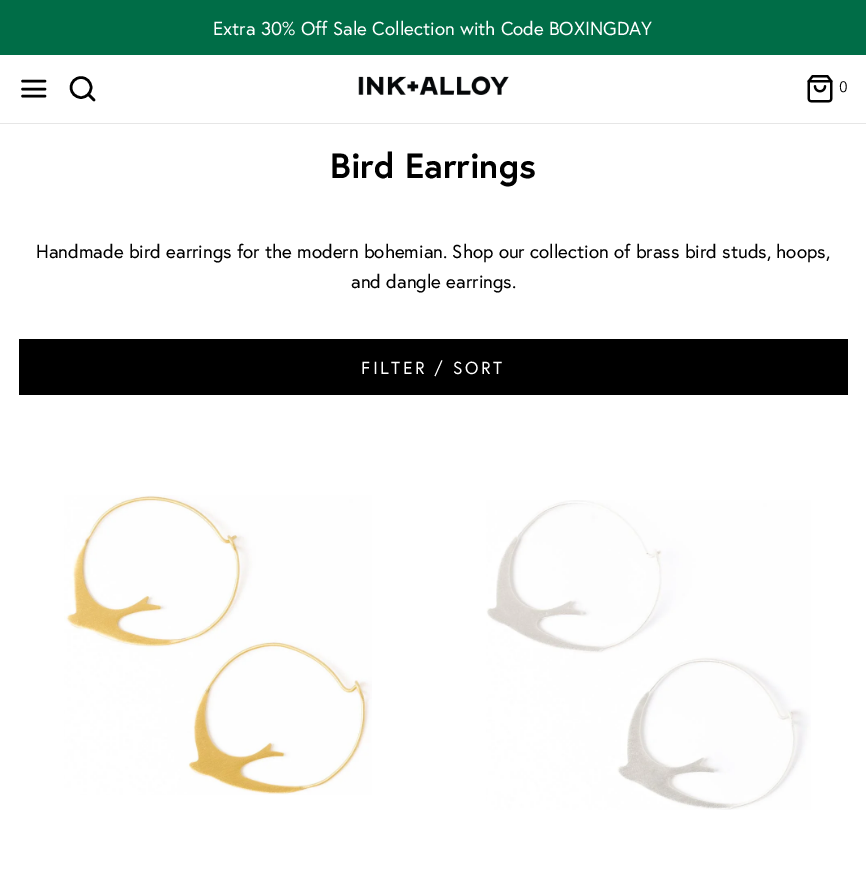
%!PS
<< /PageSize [866 876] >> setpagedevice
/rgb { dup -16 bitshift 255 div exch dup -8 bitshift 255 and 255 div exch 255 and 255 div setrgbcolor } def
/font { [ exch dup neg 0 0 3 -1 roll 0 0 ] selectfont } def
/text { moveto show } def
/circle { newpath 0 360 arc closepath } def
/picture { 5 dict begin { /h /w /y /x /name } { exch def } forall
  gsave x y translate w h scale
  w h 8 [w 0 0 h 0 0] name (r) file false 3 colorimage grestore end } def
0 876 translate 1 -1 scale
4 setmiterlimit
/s1 { /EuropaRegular-Regular 18.75 font 16#FFFFFF rgb } def
/s2 { /AvenirNext-Regular 15 font 16#000000 rgb } def
/s3 { /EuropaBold-Bold 35 font 16#000000 rgb } def
/s4 { /EuropaRegular-Regular 18.75 font 16#000000 rgb } def
16#FFFFFF rgb
0 0 866 876 rectfill
16#006D47 rgb
0 0 866 55 rectfill
s1
(Extra 30% Off Sale Collection with Code BOXINGDAY) 213 35 text
16#E6E6E6 rgb
0 123 866 1 rectfill
16#000000 rgb
2.5 setlinewidth
1 setlinecap
1 setlinejoin
22.5 89 moveto 45 89 lineto 22.5 81 moveto 45 81 lineto 22.5 96 moveto 45 96 lineto stroke
0 setlinecap
0 setlinejoin
81 87.5 10 circle stroke
1 setlinecap
1 setlinejoin
94 100 moveto 88.5 94.5 lineto stroke
(pic1.raw) 358 76 151 19 picture
(pic2.raw) 807 75 26 28 picture
s2
(0) 839 92 text
s3
(Bird Earrings) 330 178 text
s4
(Handmade bird earrings for the modern bohemian. Shop our collection of brass bird studs, hoops,) 36 258 text
(and dangle earrings.) 351 288 text
19 339 829 56 rectfill
/EuropaRegular-Regular 17.5 font
16#FFFFFF rgb
361 374 moveto 2.5 0 (FILTER / SORT) ashow
(pic3.raw) 64 495 308 300 picture
(pic4.raw) 486 500 325 310 picture
showpage
